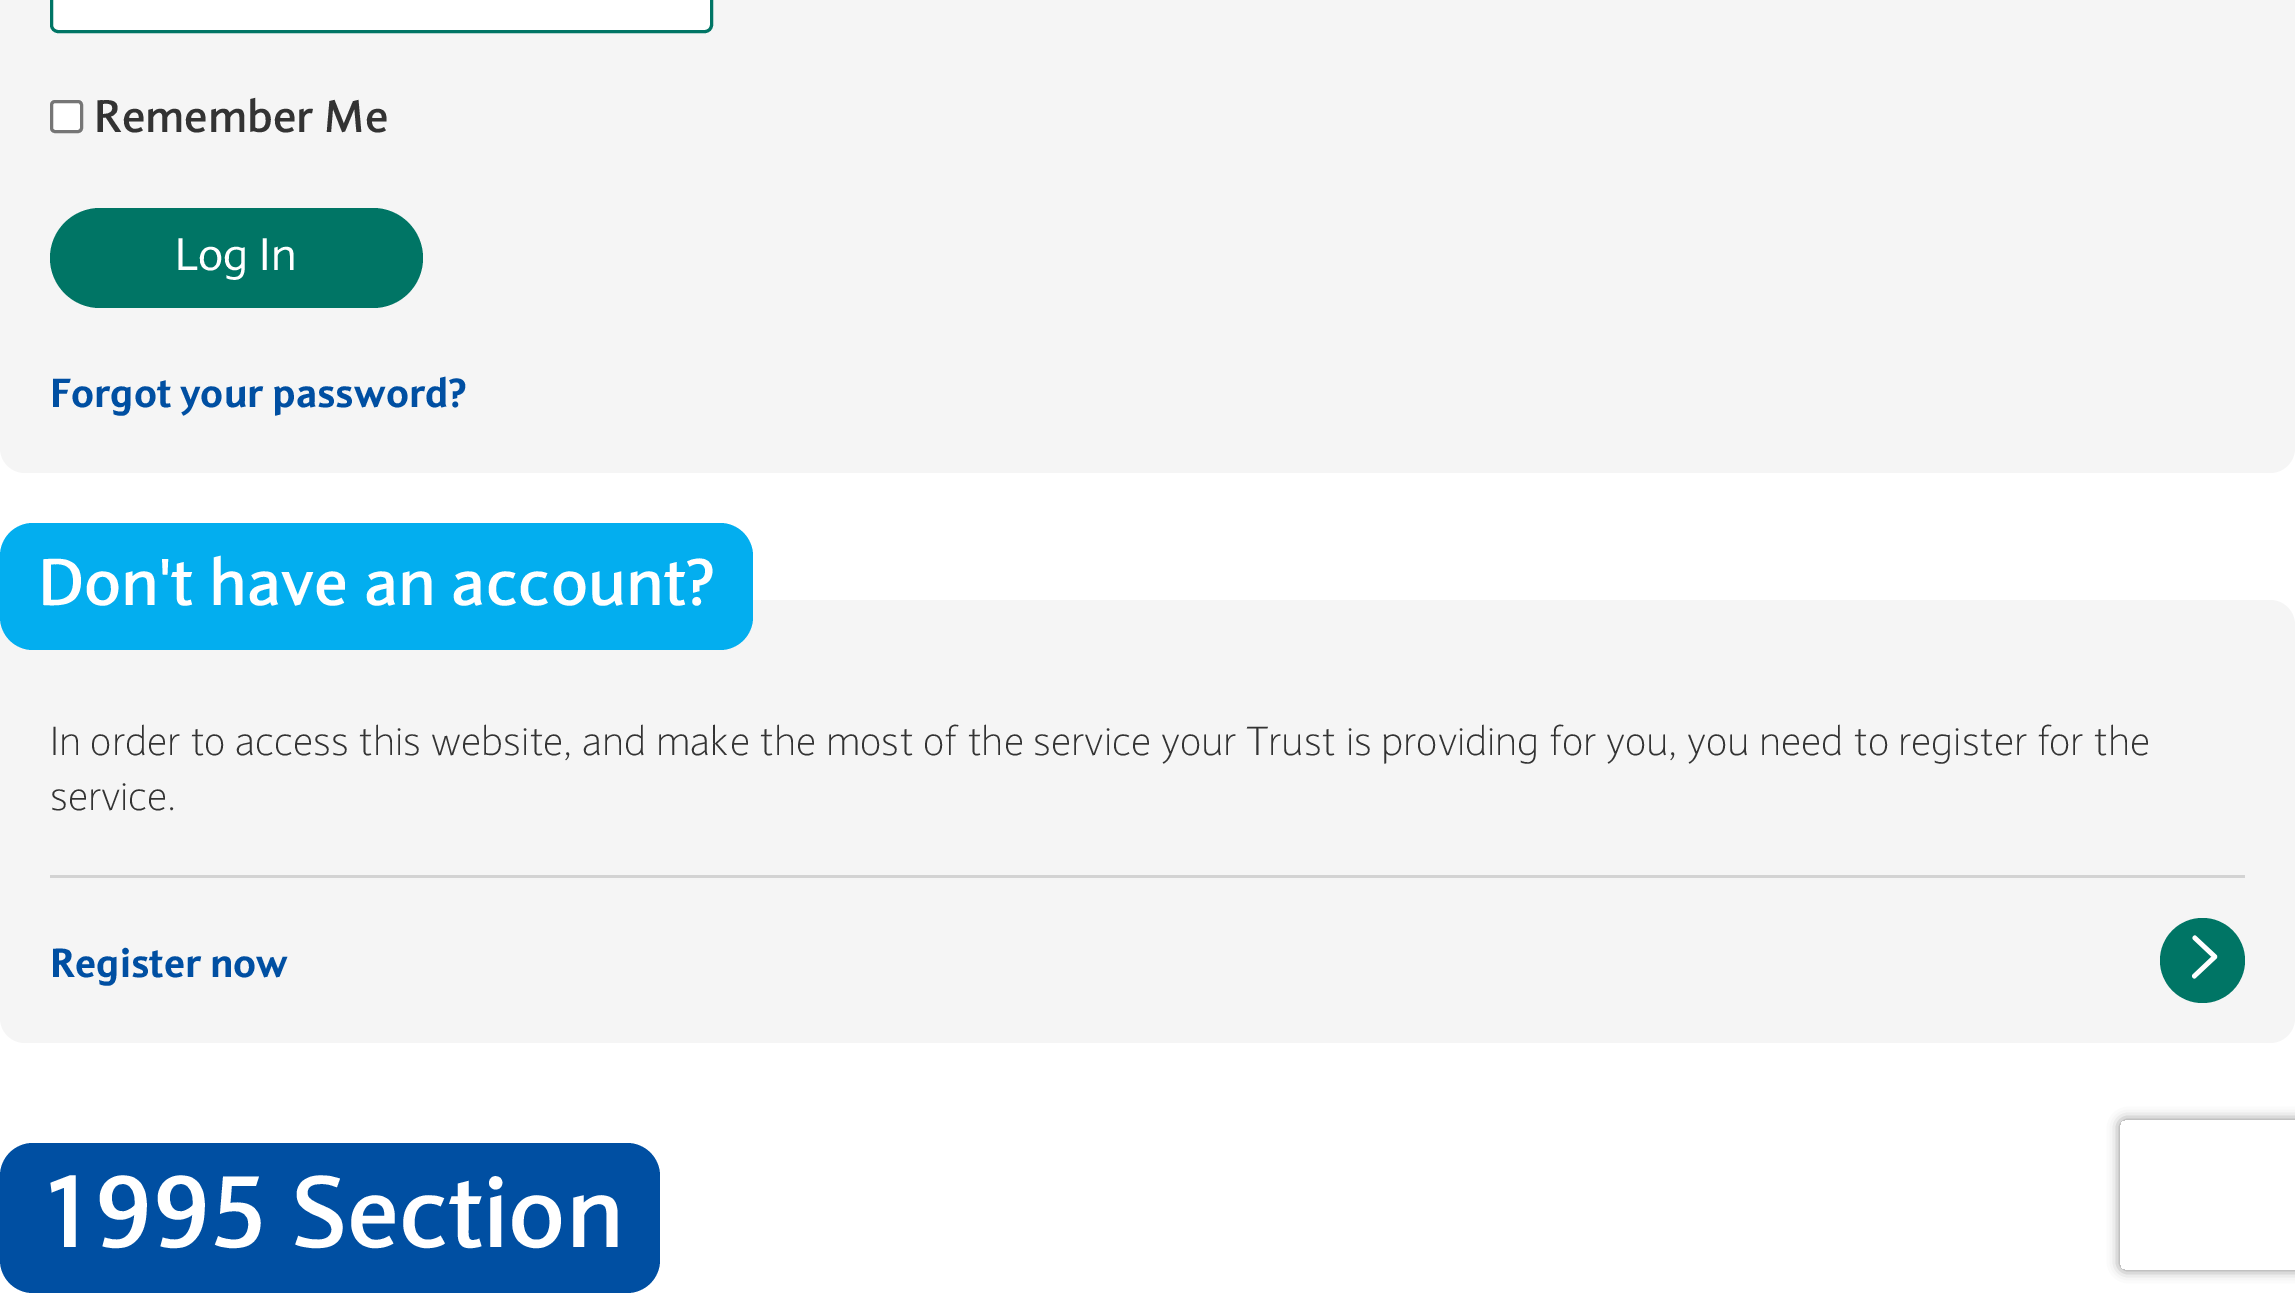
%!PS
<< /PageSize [2295 1303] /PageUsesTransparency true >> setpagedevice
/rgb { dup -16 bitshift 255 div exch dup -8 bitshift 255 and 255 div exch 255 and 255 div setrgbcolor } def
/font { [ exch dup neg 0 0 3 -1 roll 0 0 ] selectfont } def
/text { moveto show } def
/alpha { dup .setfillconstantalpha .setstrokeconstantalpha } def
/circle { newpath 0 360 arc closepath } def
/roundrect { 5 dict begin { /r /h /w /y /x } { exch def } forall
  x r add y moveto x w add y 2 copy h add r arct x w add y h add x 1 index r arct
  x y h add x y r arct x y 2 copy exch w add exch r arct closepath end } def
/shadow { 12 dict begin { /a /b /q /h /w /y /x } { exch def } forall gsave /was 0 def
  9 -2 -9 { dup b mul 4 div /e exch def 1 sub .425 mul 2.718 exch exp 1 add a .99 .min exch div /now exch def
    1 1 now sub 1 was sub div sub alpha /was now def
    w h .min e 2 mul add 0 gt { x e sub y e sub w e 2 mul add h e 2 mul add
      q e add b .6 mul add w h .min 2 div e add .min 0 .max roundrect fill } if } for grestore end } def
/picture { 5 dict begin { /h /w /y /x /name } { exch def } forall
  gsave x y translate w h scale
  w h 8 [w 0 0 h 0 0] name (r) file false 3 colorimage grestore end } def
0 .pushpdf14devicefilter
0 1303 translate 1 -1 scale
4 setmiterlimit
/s1 { /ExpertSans-Bold 45 font 16#333333 rgb } def
/s2 { /ExpertSans-Regular 45 font 16#FFFFFF rgb } def
/s3 { /ExpertSans-ExtraBold 40 font 16#004FA2 rgb } def
/s4 { /ExpertSans-Bold 65 font 16#FFFFFF rgb } def
/s5 { /ExpertSans-ExtraLight 40 font 16#333333 rgb } def
/s6 { /ExpertSans-Bold 100 font 16#FFFFFF rgb } def
16#FFFFFF rgb
0 0 2295 1303 rectfill
16#F5F5F5 rgb
0 -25 2295 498 25 roundrect fill
16#FFFFFF rgb
51.5 -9.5 660 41 6.5 roundrect gsave fill grestore
16#007565 rgb
3 setlinewidth
stroke
16#FFFFFF rgb
51.5 101.5 30 30 3.5 roundrect gsave fill grestore
16#767676 rgb
stroke
s1
(Remember Me) 94 132 text
16#007565 rgb
50 208 373 100 50 roundrect fill
s2
(Log In) 175 270 text
s3
(Forgot your password?) 50 407 text
16#F5F5F5 rgb
0 600 2295 443 25 roundrect fill
16#03AEEF rgb
0 523 753 127 33 roundrect fill
s4
(Don't have an account?) 38 605 text
16#D3D3D3 rgb
50 875 2195 3 rectfill
s5
(In order to access this website, and make the most of the service your Trust is providing for you, you need to register for the) 50 755 text
(service.) 50 810 text
s3
(Register now) 50 977 text
16#007565 rgb
2202.5 960.5 42.5 circle fill
(pic1.raw) 2192 935 26 44 picture
16#004FA2 rgb
0 1143 660 150 33 roundrect fill
s6
(1995 Section) 38 1247 text
gsave
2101 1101 moveto 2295 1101 lineto 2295 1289 lineto 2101 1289 lineto closepath 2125 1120 moveto 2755 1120 lineto 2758 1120 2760 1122 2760 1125 curveto 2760 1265 lineto 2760 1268 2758 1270 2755 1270 curveto 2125 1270 lineto 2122 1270 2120 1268 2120 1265 curveto 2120 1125 lineto 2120 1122 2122 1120 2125 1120 curveto closepath eoclip newpath
16#808080 rgb
2120 1120 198 150 5 6 1 shadow
grestore
.poppdf14devicefilter showpage
